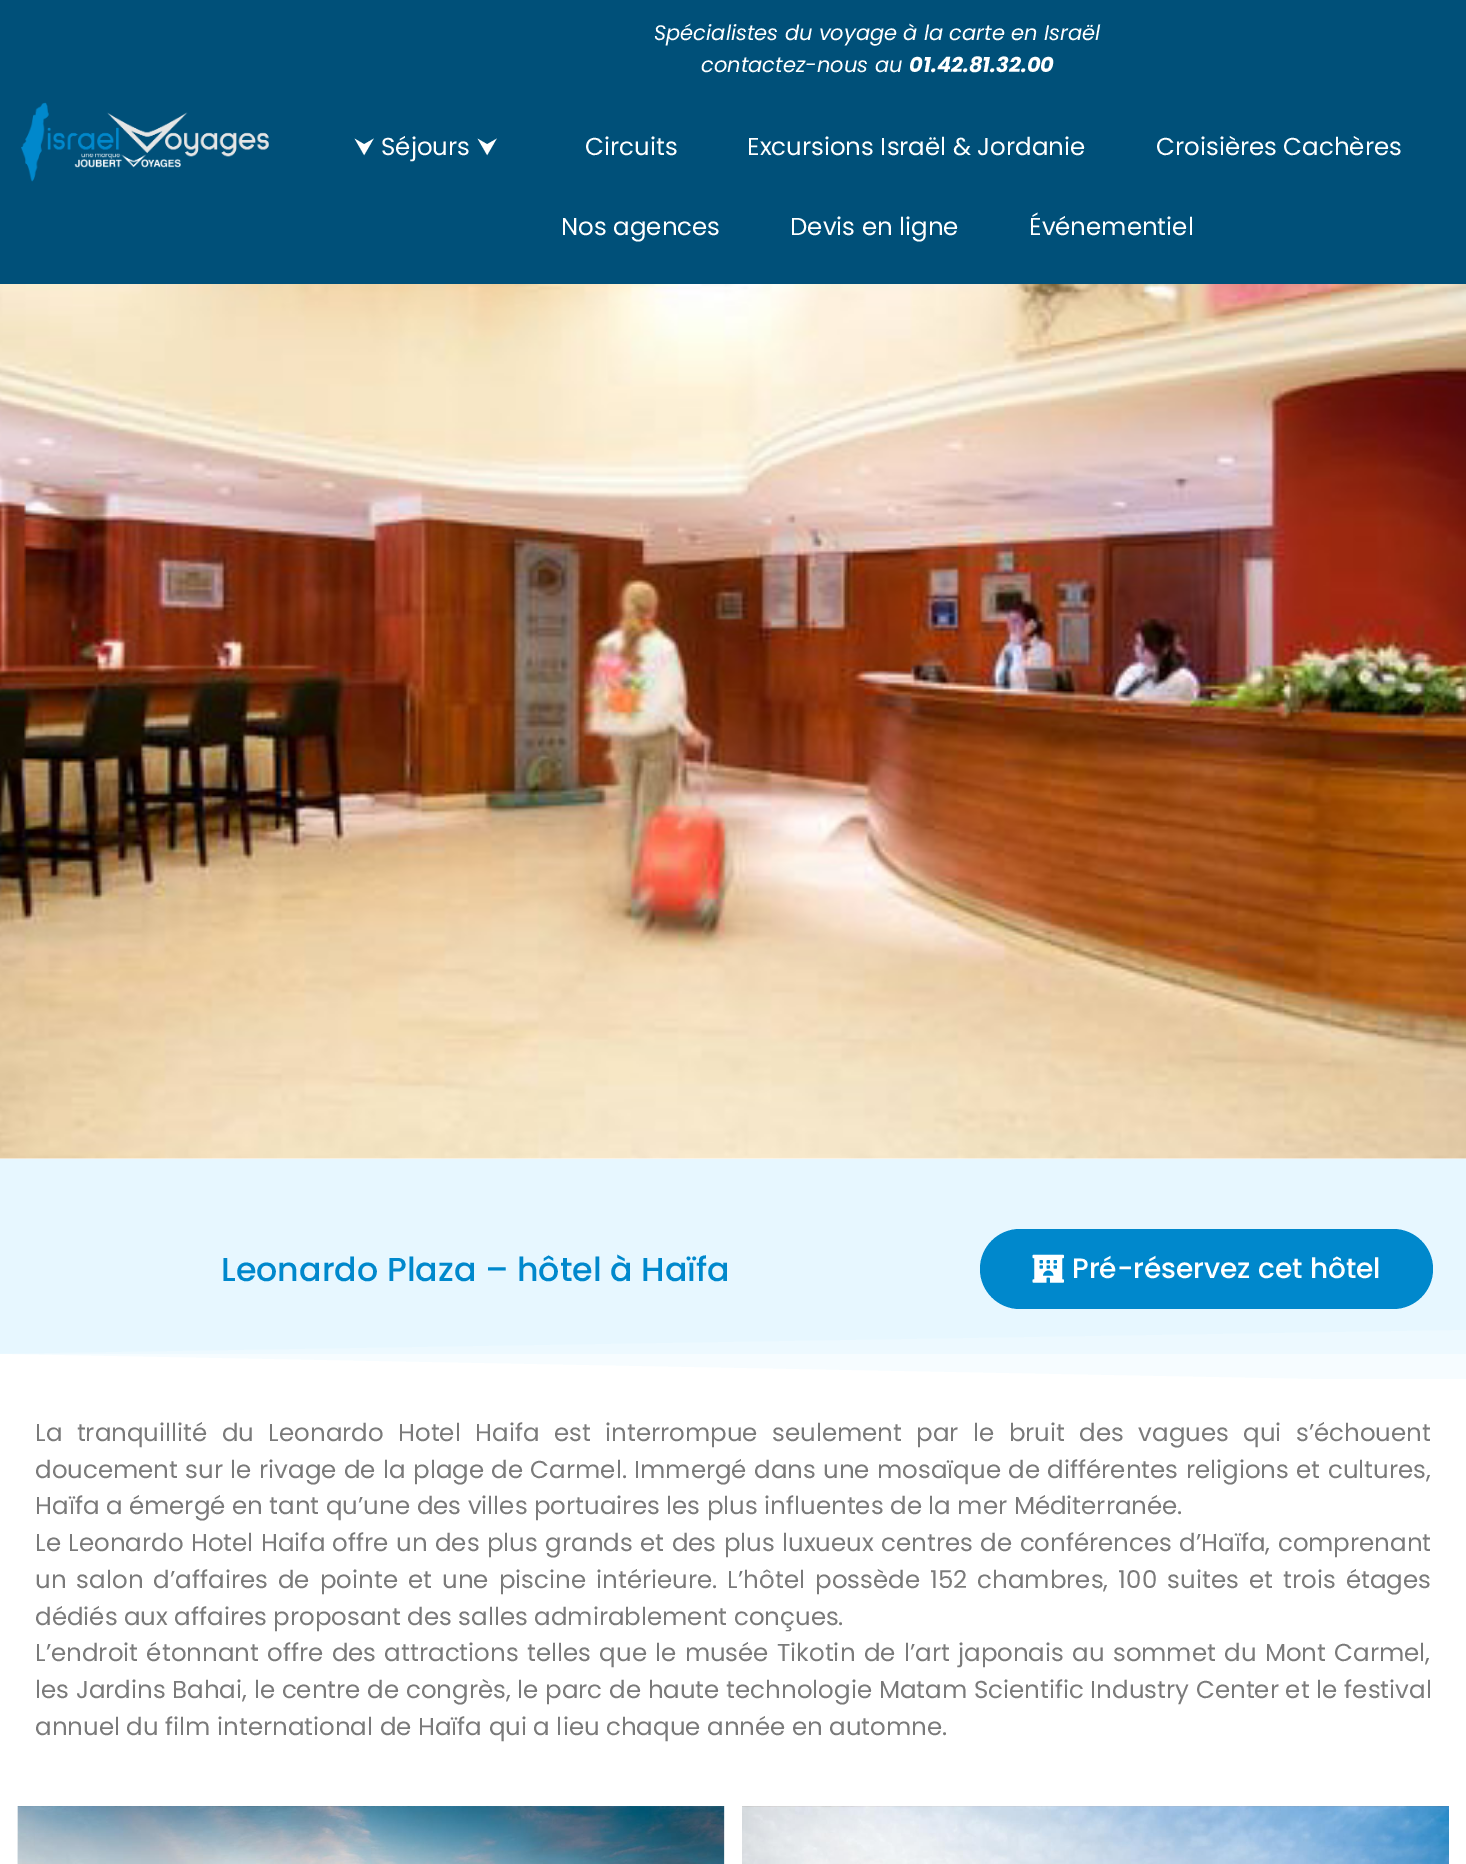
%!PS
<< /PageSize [1466 1864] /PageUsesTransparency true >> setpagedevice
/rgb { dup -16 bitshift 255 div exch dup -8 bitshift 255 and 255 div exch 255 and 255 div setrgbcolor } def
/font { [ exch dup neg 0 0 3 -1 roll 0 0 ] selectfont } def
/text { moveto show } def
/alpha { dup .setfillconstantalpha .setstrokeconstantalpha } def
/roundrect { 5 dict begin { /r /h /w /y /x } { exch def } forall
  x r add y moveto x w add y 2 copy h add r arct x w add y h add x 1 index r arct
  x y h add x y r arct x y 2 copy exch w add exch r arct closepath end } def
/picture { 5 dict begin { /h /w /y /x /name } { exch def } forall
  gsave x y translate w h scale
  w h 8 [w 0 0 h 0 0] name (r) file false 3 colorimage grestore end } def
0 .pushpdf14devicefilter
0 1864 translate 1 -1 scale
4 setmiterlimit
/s1 { /Poppins-Italic 21 font 16#FFFFFF rgb } def
/s2 { /Poppins-BoldItalic 21 font 16#FFFFFF rgb } def
/s3 { /FreeSans-Regular 24.5 font 16#FFFFFF rgb } def
/s4 { /Poppins-Regular 24.5 font 16#FFFFFF rgb } def
/s5 { /Poppins-Medium 33.25 font 16#0088CC rgb } def
/s6 { /Poppins-Medium 28 font 16#FFFFFF rgb } def
/s7 { /Poppins-Regular 24.5 font 16#7A7A7A rgb } def
16#FFFFFF rgb
0 0 1466 1864 rectfill
16#005079 rgb
0 0 1466 284 rectfill
(pic1.raw) 21 102 248 80 picture
s1
(Spécialistes du voyage à la carte en Israël) 654 40 text
(contactez-nous au) 701 72 text
s2
(01.42.81.32.00) 909 72 text
s3
(⮟) 354 155 text
s4
(Séjours) 381 155 text
s3
(⮟) 477 155 text
s4
(Circuits) 585 155 text
(Excursions Israël & Jordanie) 747 155 text
(Croisières Cachères) 1156 155 text
(Nos agences) 561 235 text
(Devis en ligne) 790 235 text
(Événementiel) 1029 235 text
(pic2.raw) 0 284 1466 875 picture
16#E7F7FF rgb
0 1159 1466 195 rectfill
16#F3FBFF rgb
2 1354 1464 25 rectfill
s5
(Leonardo Plaza – hôtel à Haïfa) 221 1281 text
980 1229 453 80 40 roundrect fill
(pic3.raw) 1032 1254 32 29 picture
s6
(Pré-réservez cet hôtel) 1072 1278 text
gsave
0 1328 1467 53 rectclip
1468 1382 moveto -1 1382 lineto -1 1354 lineto closepath fill
0.25 alpha
-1 1382 moveto 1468 1382 lineto 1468 1330 lineto -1 1354 lineto closepath fill
grestore
/Poppins-Regular 24.5 font
16#7A7A7A rgb
35 1441 moveto 7.9 0 32 (La tranquillité du Leonardo Hotel Haifa est interrompue seulement par le bruit des vagues qui s’échouent) widthshow
35 1478 moveto 0.9 0 32 (doucement sur le rivage de la plage de Carmel. Immergé dans une mosaïque de différentes religions et cultures,) widthshow
(Haïfa a émergé en tant qu’une des villes portuaires les plus influentes de la mer Méditerranée.) 35 1514 text
35 1551 moveto 0.9 0 32 (Le Leonardo Hotel Haifa offre un des plus grands et des plus luxueux centres de conférences d’Haïfa, comprenant) widthshow
35 1588 moveto 3.6 0 32 (un salon d’affaires de pointe et une piscine intérieure. L’hôtel possède 152 chambres, 100 suites et trois étages) widthshow
(dédiés aux affaires proposant des salles admirablement conçues.) 35 1625 text
35 1661 moveto 1.8 0 32 (L’endroit étonnant offre des attractions telles que le musée Tikotin de l’art japonais au sommet du Mont Carmel,) widthshow
35 1698 moveto 0.2 0 32 (les Jardins Bahai, le centre de congrès, le parc de haute technologie Matam Scientific Industry Center et le festival) widthshow
(annuel du film international de Haïfa qui a lieu chaque année en automne.) 35 1735 text
(pic4.raw) 17 1806 708 58 picture
(pic5.raw) 742 1806 707 58 picture
.poppdf14devicefilter showpage
